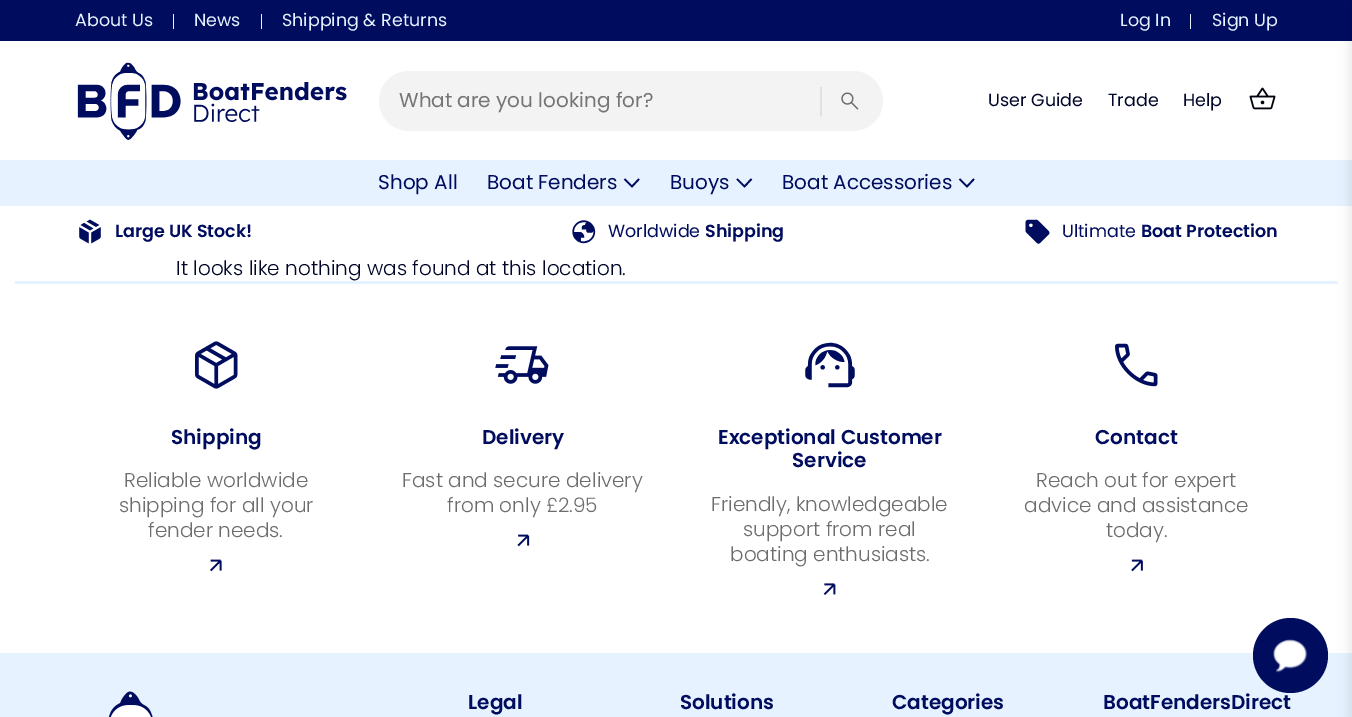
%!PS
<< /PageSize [1352 717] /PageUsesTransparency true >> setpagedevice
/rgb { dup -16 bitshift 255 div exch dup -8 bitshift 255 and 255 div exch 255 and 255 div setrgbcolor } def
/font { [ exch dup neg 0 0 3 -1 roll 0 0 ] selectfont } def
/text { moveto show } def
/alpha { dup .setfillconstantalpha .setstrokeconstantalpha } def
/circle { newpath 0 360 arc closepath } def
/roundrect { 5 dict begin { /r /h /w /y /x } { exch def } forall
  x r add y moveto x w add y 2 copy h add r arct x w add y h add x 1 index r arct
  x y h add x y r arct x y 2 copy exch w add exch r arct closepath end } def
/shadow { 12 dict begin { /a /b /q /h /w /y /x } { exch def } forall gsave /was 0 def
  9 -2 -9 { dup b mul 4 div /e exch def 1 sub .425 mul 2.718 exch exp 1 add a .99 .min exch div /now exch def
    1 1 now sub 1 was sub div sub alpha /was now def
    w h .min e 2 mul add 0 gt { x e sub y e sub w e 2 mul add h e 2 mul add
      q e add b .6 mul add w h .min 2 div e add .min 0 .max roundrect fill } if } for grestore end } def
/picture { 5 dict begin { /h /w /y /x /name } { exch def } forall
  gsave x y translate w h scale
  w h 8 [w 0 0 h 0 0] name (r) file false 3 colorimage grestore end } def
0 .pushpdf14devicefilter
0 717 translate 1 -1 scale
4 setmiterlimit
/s1 { /Poppins-Regular 17.5 font 16#E6F2FF rgb } def
/s2 { /Poppins-Regular 20 font 16#757575 rgb } def
/s3 { /Poppins-Regular 17.5 font 16#000527 rgb } def
/s4 { /Poppins-Regular 20 font 16#000C5E rgb } def
/s5 { /Poppins-SemiBold 17.5 font 16#000C5E rgb } def
/s6 { /Poppins-Regular 17.5 font 16#000C5E rgb } def
/s7 { /Poppins-Light 20 font 16#000527 rgb } def
/s8 { /Poppins-SemiBold 20 font 16#000C5E rgb } def
/s9 { /Poppins-Light 20 font 16#6D6D6D rgb } def
16#FFFFFF rgb
0 0 1352 717 rectfill
16#000C5E rgb
0 0 1352 41 rectfill
s1
(About Us) 75 26 text
173 14 1 15 rectfill
(News) 194 26 text
261 14 1 15 rectfill
(Shipping & Returns) 282 26 text
(Log In) 1120 26 text
1190 14 1 15 rectfill
(Sign Up) 1212 26 text
(pic1.raw) 77 62 270 78 picture
16#F3F3F3 rgb
379 71 504 60 30 roundrect fill
s2
(What are you looking for?) 399 107 text
16#DBDBDB rgb
1.2 setlinewidth
821 87 moveto 821 116.5 lineto stroke
(pic2.raw) 841 92 18 18 picture
s3
(User Guide) 988 106 text
(Trade) 1108 106 text
(Help) 1183 106 text
(pic3.raw) 1249 87 27 23 picture
16#E6F2FF rgb
0 160 1352 46 rectfill
s4
(Shop All) 378 189 text
(Boat Fenders) 487 189 text
1.7 setlinewidth
624.5 179 moveto 632 186.5 lineto 639 179 lineto stroke
(Buoys) 670 189 text
737 179 moveto 744.5 186.5 lineto 751.5 179 lineto stroke
(Boat Accessories) 782 189 text
959.5 179 moveto 967 186.5 lineto 974 179 lineto stroke
(pic4.raw) 79 219 22 25 picture
s5
(Large UK Stock!) 115 237 text
(pic5.raw) 572 220 24 24 picture
s6
(Worldwide) 608 237 text
s5
(Shipping) 705 237 text
(pic6.raw) 1025 219 25 25 picture
s6
(Ultimate) 1062 237 text
s5
(Boat Protection) 1141 237 text
16#E6F2FF rgb
15 281 1323 3 rectfill
0 653 1352 64 rectfill
16#000000 rgb
1350 0 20 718 0 6 0.1 shadow
s7
(It looks like nothing was found at this location.) 176 275 text
(pic7.raw) 195 341 43 48 picture
s8
(Shipping) 171 444 text
s9
(Reliable worldwide) 124 487 text
(shipping for all your) 119 512 text
(fender needs.) 148 537 text
(pic8.raw) 210 559 12 13 picture
(pic9.raw) 495 346 54 38 picture
s8
(Delivery) 482 444 text
s9
(Fast and secure delivery) 402 487 text
(from only £2.95) 447 512 text
(pic10.raw) 517 534 13 13 picture
(pic11.raw) 805 342 50 46 picture
s8
(Exceptional Customer) 718 444 text
(Service) 792 467 text
s9
(Friendly, knowledgeable) 711 511 text
(support from real) 743 536 text
(boating enthusiasts.) 730 561 text
(pic12.raw) 823 583 13 12 picture
(pic13.raw) 1115 343 43 44 picture
s8
(Contact) 1095 444 text
s9
(Reach out for expert) 1036 487 text
(advice and assistance) 1024 512 text
(today.) 1106 537 text
(pic14.raw) 1131 559 12 13 picture
(pic15.raw) 109 691 44 26 picture
s8
(Legal) 468 709 text
(Solutions) 680 709 text
(Categories) 892 709 text
(BoatFendersDirect) 1103 709 text
1290.5 655.5 37.5 circle fill
(pic16.raw) 1273 639 35 34 picture
.poppdf14devicefilter showpage
